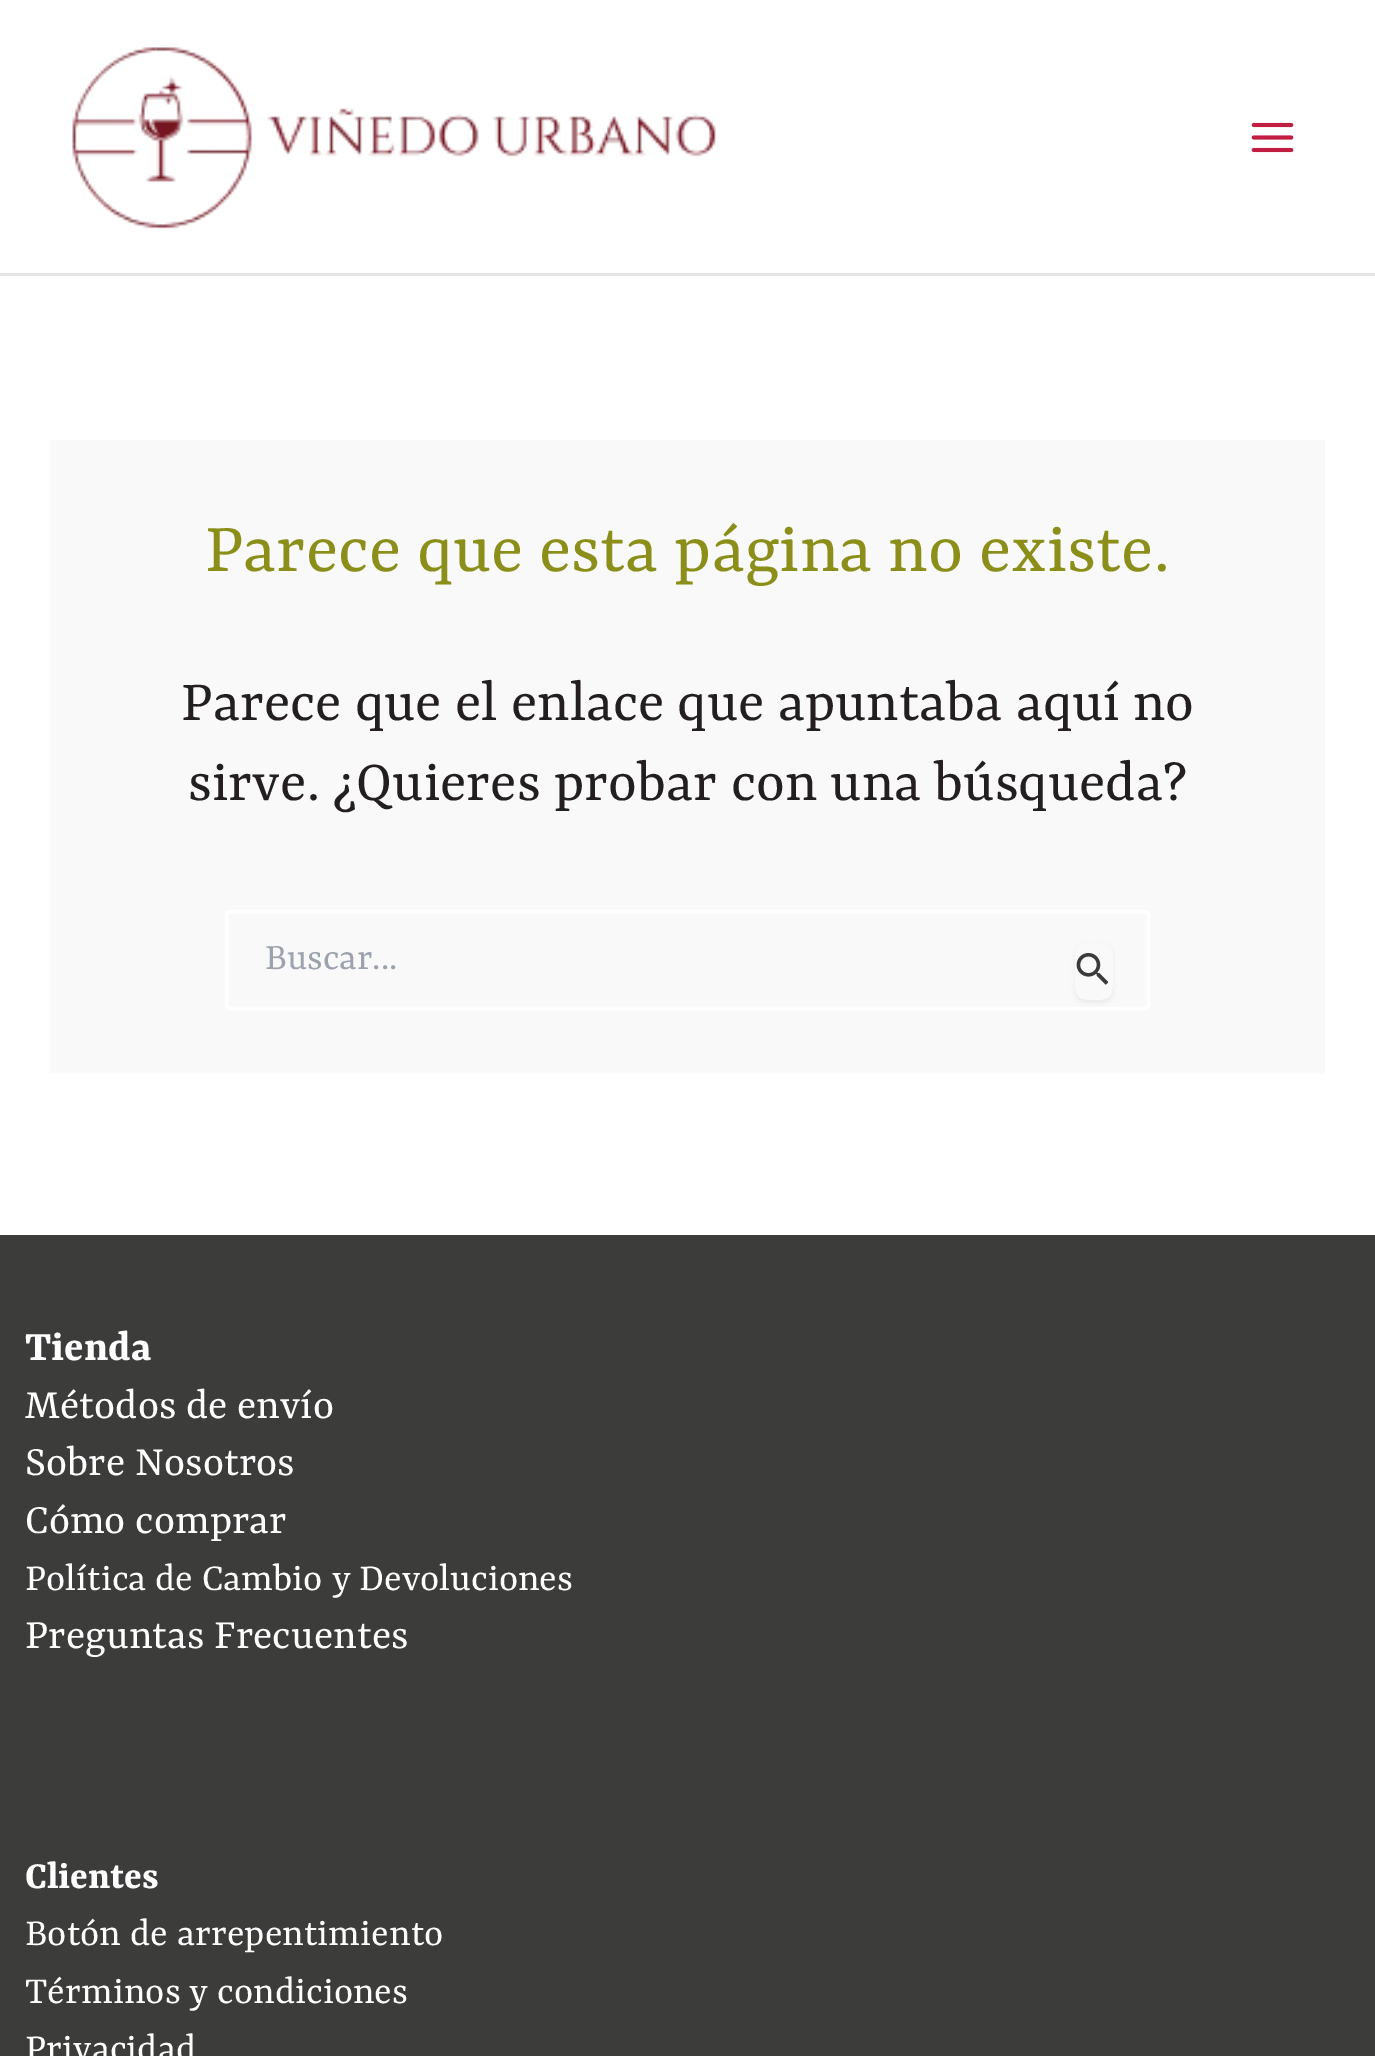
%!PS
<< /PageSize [1375 2056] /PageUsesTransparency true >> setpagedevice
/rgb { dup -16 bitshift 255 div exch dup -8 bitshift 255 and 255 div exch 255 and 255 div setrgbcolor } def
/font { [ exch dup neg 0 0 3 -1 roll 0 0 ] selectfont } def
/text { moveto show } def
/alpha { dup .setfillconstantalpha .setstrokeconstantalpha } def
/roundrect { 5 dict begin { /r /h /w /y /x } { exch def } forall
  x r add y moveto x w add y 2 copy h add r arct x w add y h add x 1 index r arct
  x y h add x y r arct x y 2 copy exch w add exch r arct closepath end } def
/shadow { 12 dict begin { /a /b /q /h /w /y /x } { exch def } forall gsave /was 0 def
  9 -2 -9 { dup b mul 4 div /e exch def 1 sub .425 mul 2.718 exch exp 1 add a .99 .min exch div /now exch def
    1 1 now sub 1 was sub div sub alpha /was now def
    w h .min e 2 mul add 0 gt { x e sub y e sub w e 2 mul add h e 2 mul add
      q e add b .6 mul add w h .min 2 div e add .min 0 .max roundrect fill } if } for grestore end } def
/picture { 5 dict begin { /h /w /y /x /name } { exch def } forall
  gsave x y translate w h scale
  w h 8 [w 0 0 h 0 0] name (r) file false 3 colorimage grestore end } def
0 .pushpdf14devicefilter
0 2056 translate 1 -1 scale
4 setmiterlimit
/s1 { /Rasa-Regular 75 font 16#8B8F19 rgb } def
/s2 { /Rasa-Regular 61.5 font 16#231F20 rgb } def
/s3 { /Rasa-Regular 40 font 16#9CA3AF rgb } def
/s4 { /Rasa-Bold 45 font 16#FFFFFF rgb } def
/s5 { /Rasa-Regular 45 font 16#FFFFFF rgb } def
/s6 { /Rasa-Regular 41 font 16#FFFFFF rgb } def
/s7 { /Rasa-Bold 41 font 16#FFFFFF rgb } def
16#FFFFFF rgb
0 0 1375 2056 rectfill
16#E4E4E4 rgb
0 273 1375 3 rectfill
(pic1.raw) 72 47 644 182 picture
(pic2.raw) 1251 122 43 31 picture
16#F9F9F9 rgb
50 440 1275 633 rectfill
s1
(Parece que esta página no existe.) 205 571 text
s2
(Parece que el enlace que apuntaba aquí no) 181 720 text
(sirve. ¿Quieres probar con una búsqueda?) 188 800 text
16#FFFFFF rgb
3 setlinewidth
226.5 911.5 922 97 3.5 roundrect stroke
s3
(Buscar...) 265 969 text
gsave
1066 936 moveto 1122 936 lineto 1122 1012 lineto 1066 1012 lineto closepath 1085 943 moveto 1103 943 lineto 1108.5 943 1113 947.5 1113 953 curveto 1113 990 lineto 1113 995.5 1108.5 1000 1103 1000 curveto 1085 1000 lineto 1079.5 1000 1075 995.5 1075 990 curveto 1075 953 lineto 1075 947.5 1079.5 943 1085 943 curveto closepath eoclip newpath
16#000000 rgb
1075 945 38 58 10 2.5 0.05 shadow
grestore
(pic3.raw) 1076 952 32 33 picture
16#3C3C3B rgb
0 1235 1375 821 rectfill
s4
(Tienda) 25 1360 text
s5
(Métodos de envío) 25 1418 text
(Sobre Nosotros) 25 1475 text
(Cómo comprar) 25 1533 text
s6
(Política de Cambio y Devoluciones) 25 1590 text
s5
(Preguntas Frecuentes) 25 1648 text
s7
(Clientes) 25 1888 text
s6
(Botón de arrepentimiento) 25 1945 text
(Términos y condiciones) 25 2003 text
(Privacidad) 25 2060 text
.poppdf14devicefilter showpage
